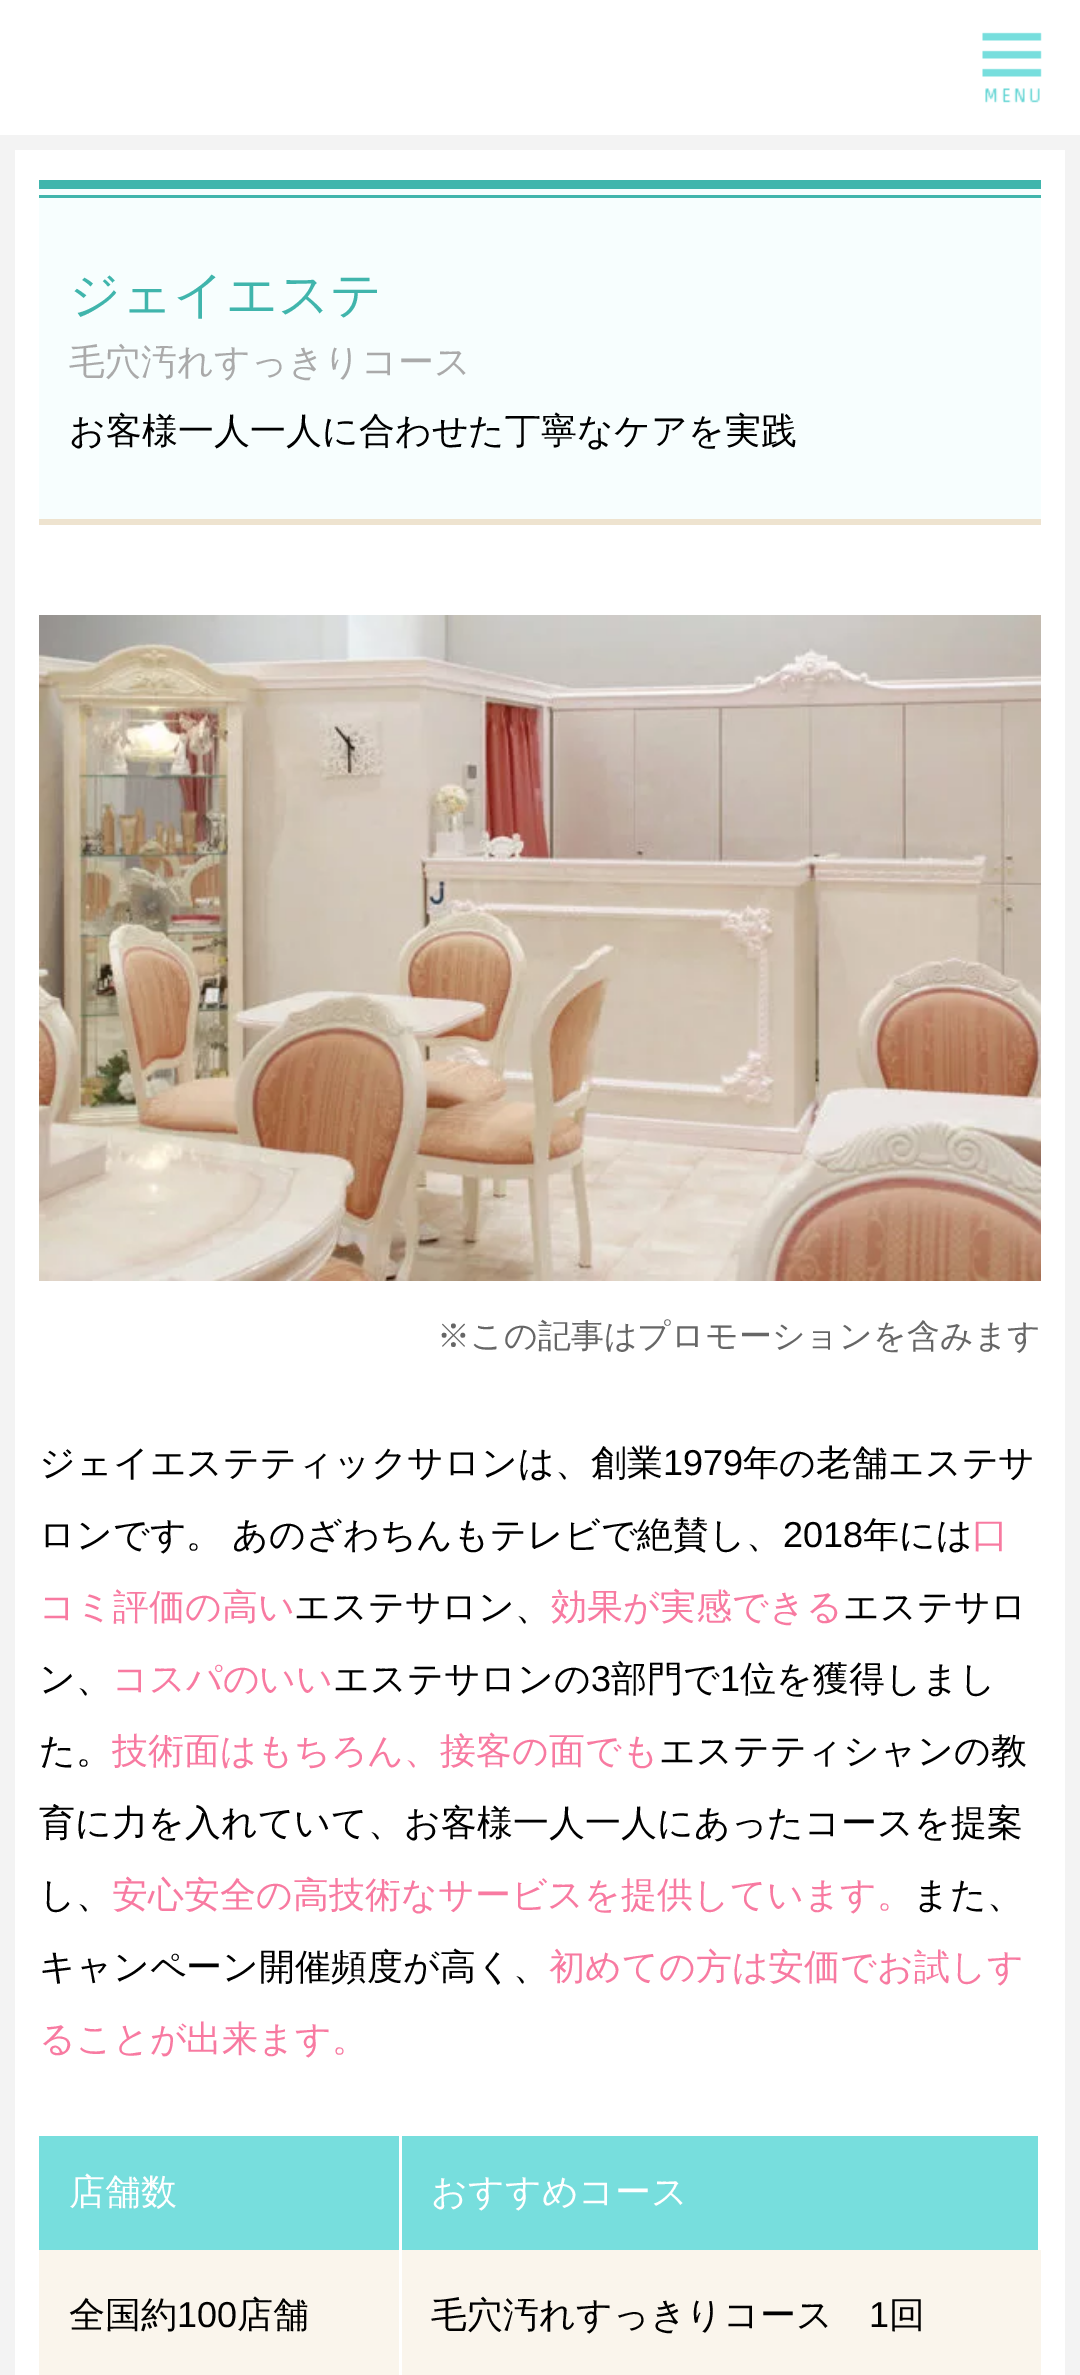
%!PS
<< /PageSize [1080 2375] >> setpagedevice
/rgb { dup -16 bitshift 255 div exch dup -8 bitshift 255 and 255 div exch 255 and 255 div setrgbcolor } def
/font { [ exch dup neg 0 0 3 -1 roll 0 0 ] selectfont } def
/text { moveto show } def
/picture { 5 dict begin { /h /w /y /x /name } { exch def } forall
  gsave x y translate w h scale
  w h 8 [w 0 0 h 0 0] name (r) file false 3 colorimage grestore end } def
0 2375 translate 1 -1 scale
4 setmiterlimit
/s1 { /WenQuanYiZenHei-Medium 51 font 16#40B5AC rgb } def
/s2 { /WenQuanYiZenHei-Medium 36 font 16#AAAAAA rgb } def
/s3 { /WenQuanYiZenHei-Medium 36 font 16#000000 rgb } def
/s4 { /WenQuanYiZenHei-Medium 33 font 16#666666 rgb } def
/s5 { /LiberationSans-Regular 36 font 16#000000 rgb } def
/s6 { /WenQuanYiZenHei-Medium 36 font 16#F87AA1 rgb } def
/s7 { /WenQuanYiZenHei-Medium 36 font 16#FFFFFF rgb } def
16#F3F3F3 rgb
0 0 1080 2375 rectfill
16#FFFFFF rgb
0 0 1080 135 rectfill
(pic1.raw) 982 32 60 71 picture
15 150 1050 2225 rectfill
16#F7FEFE rgb
39 189 1002 330 rectfill
16#40B5AC rgb
39 180 1002 9 rectfill
16#EEE3CF rgb
39 519 1002 6 rectfill
16#40B5AC rgb
39 195 1002 3 rectfill
s1
(ジェイエステ) 69 312 text
s2
(毛穴汚れすっきりコース) 69 374 text
s3
(お客様一人一人に合わせた丁寧なケアを実践) 69 443 text
(pic2.raw) 39 615 1002 666 picture
s4
(※この記事はプロモーションを含みます) 437 1347 text
s3
(ジェイエステティックサロンは、創業) 39 1475 text
s5
(1979) 663 1475 text
s3
(年の老舗エステサ) 743 1475 text
39 1547 moveto -1 0 32 (ロンです。 あのざわちんもテレビで絶賛し、) widthshow
s5
(2018) 783 1547 text
s3
(年には) 863 1547 text
s6
(口) 972 1547 text
(コミ評価の高い) 39 1619 text
s3
(エステサロン、) 294 1619 text
s6
(効果が実感できる) 551 1619 text
s3
(エステサロ) 843 1619 text
(ン、) 39 1691 text
s6
(コスパのいい) 112 1691 text
s3
(エステサロンの) 333 1691 text
s5
(3) 591 1691 text
s3
(部門で) 611 1691 text
s5
(1) 720 1691 text
s3
(位を獲得しまし) 740 1691 text
(た。) 39 1763 text
s6
(技術面はもちろん、接客の面でも) 112 1763 text
s3
(エステティシャンの教) 659 1763 text
(育に力を入れていて、お客様一人一人にあったコースを提案) 39 1835 text
(し、) 39 1907 text
s6
(安心安全の高技術なサービスを提供しています。) 112 1907 text
s3
(また、) 913 1907 text
(キャンペーン開催頻度が高く、) 39 1979 text
s6
(初めての方は安価でお試しす) 549 1979 text
(ることが出来ます。) 39 2051 text
16#77DEDD rgb
39 2136 360 114 rectfill
s7
(店舗数) 69 2204 text
16#77DEDD rgb
402 2136 636 114 rectfill
s7
(おすすめコース) 431 2204 text
16#FAF5EC rgb
39 2250 360 125 rectfill
s3
(全国約) 69 2327 text
s5
(100) 177 2327 text
s3
(店舗) 237 2327 text
16#FAF5EC rgb
402 2250 639 125 rectfill
s3
(毛穴汚れすっきりコース) 431 2327 text
s5
(1) 869 2327 text
s3
(回) 889 2327 text
showpage
